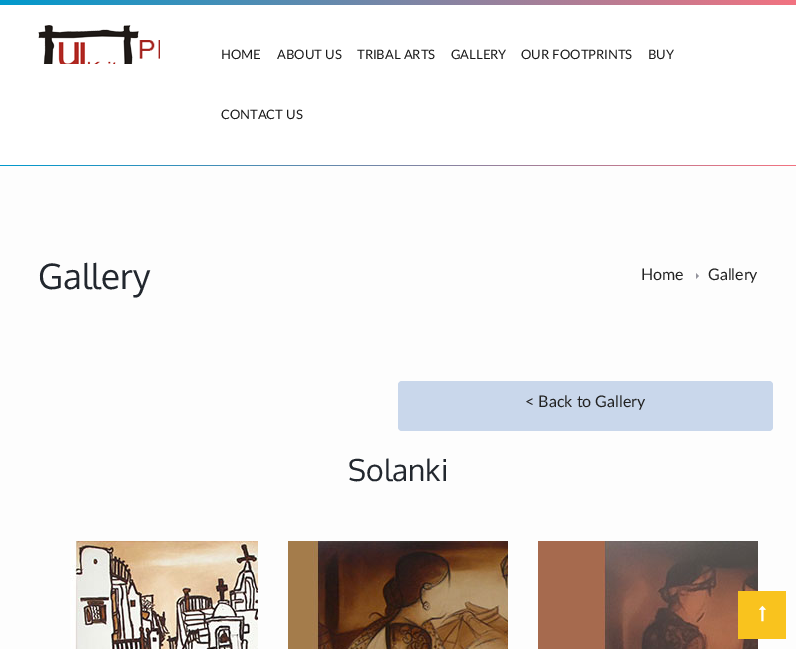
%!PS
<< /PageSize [796 649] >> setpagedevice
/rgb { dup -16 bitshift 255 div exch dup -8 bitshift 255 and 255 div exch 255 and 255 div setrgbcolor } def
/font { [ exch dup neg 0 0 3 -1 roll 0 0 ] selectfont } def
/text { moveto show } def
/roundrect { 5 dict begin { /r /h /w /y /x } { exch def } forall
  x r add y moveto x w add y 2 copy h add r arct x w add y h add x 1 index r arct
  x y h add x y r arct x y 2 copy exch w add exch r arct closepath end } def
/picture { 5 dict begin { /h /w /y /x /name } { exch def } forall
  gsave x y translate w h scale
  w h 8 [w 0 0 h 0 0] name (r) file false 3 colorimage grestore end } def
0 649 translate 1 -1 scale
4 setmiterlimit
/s1 { /Lato-Regular 13 font 16#1A1A1A rgb } def
/s2 { /Oxygen-Regular 35 font 16#22272E rgb } def
/s3 { /Lato-Regular 16 font 16#222222 rgb } def
/s4 { /Oxygen-Regular 30 font 16#22272E rgb } def
16#FDFDFD rgb
0 0 796 649 rectfill
(pic1.raw) 0 0 796 166 picture
(pic2.raw) 38 25 122 39 picture
s1
(HOME) 221 59 text
(ABOUT US) 277 59 text
(TRIBAL ARTS) 357 59 text
(GALLERY) 451 59 text
(OUR FOOTPRINTS) 521 59 text
(BUY) 648 59 text
(CONTACT US) 221 119 text
s2
(Gallery) 38 289 text
s3
(Home) 641 280 text
16#94949D rgb
696 279 moveto 696 273 lineto 699 276 lineto closepath fill
s3
(Gallery) 708 280 text
16#C9D7EB rgb
398 381 375 50 4 roundrect fill
s3
(< Back to Gallery) 525 407 text
s4
(Solanki) 348 481 text
(pic3.raw) 70 541 188 108 picture
(pic4.raw) 288 541 220 108 picture
(pic5.raw) 538 541 220 108 picture
16#F9C31E rgb
738 591 48 48 rectfill
(pic6.raw) 759 605 7 17 picture
showpage
